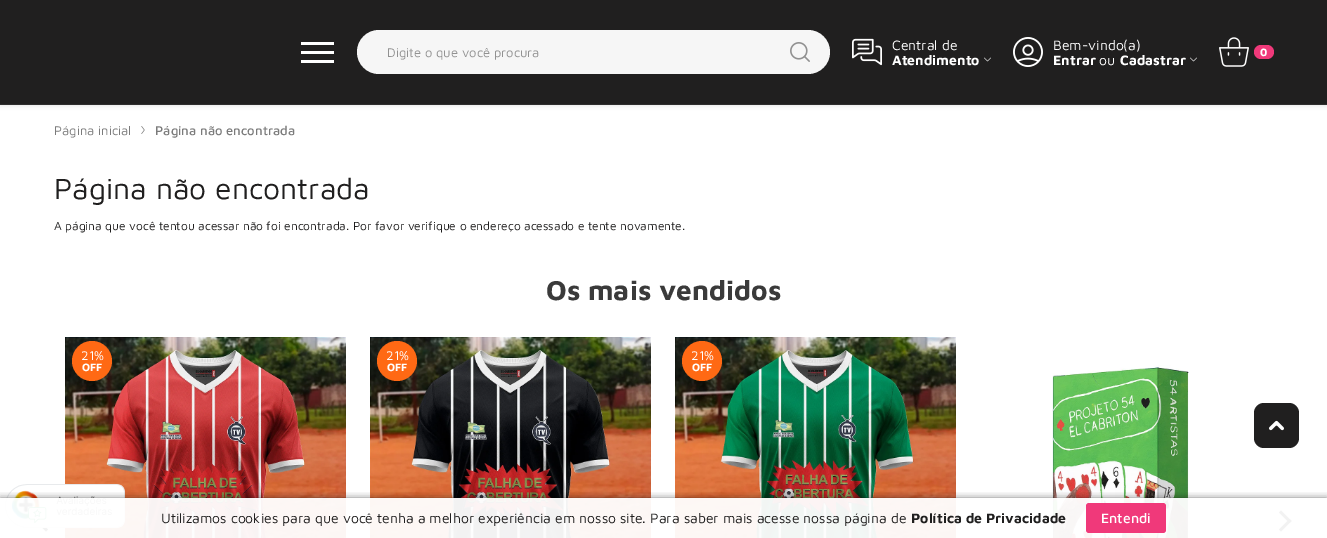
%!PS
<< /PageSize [1327 538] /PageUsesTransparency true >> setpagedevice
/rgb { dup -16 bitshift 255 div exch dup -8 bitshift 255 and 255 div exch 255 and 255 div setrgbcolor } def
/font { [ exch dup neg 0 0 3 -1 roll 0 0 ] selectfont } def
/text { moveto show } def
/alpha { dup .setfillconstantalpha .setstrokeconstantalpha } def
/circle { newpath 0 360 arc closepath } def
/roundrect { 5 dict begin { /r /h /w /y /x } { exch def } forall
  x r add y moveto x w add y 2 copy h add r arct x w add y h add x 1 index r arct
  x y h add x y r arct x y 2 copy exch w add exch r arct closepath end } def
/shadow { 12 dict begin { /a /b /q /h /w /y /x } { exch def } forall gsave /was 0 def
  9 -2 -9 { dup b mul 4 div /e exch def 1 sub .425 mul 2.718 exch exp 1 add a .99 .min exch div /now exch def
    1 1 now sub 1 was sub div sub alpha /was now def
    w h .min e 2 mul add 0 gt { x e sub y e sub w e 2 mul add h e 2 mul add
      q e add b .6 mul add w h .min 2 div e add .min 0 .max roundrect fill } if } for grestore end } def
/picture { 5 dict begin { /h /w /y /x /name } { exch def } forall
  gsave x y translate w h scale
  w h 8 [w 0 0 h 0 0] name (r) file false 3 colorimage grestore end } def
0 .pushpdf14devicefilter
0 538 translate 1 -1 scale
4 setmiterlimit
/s1 { /MavenPro-Regular 13 font 16#919191 rgb } def
/s2 { /MavenPro-Regular 14 font 16#FFFFFF rgb } def
/s3 { /MavenPro-Bold 14 font 16#FFFFFF rgb } def
/s4 { /MavenPro-Bold 11 font 16#FFFFFF rgb } def
/s5 { /MavenPro-Regular 13 font 16#7B7B7B rgb } def
/s6 { /MavenPro-Medium 13 font 16#7B7B7B rgb } def
/s7 { /MavenPro-Regular 30 font 16#201F1F rgb } def
/s8 { /MavenPro-Regular 12 font 16#201F1F rgb } def
/s9 { /MavenPro-Bold 28 font 16#3A3A3A rgb } def
/s10 { /MavenPro-Regular 13 font 16#FFFFFF rgb } def
/s11 { /MavenPro-Regular 14 font 16#201F1F rgb } def
/s12 { /MavenPro-Bold 14 font 16#201F1F rgb } def
/s13 { /MavenPro-Medium 14 font 16#FFFFFF rgb } def
16#FFFFFF rgb
0 0 1327 538 rectfill
16#525252 rgb
0 1 1327 105 0 2 0.13 shadow
16#201F1F rgb
0 0 1327 104 rectfill
16#2F2E2E rgb
0 104 1327 1 rectfill
16#FFFFFF rgb
301 60 33 3 rectfill
301 42 33 3 rectfill
301 51 33 3 rectfill
16#F6F6F6 rgb
357 30 473 44 22 roundrect fill
s1
(Digite o que você procura) 387 57 text
(pic1.raw) 790 42 20 20 picture
(pic2.raw) 852 38 30 28 picture
s2
(Central de) 892 50 text
s3
(Atendimento) 892 65 text
(pic3.raw) 984 57 7 5 picture
(pic4.raw) 1013 37 30 30 picture
s2
(Bem-vindo\(a\)) 1053 50 text
s3
(Entrar) 1053 65 text
s2
(ou) 1099 65 text
s3
(Cadastrar) 1120 65 text
(pic3.raw) 1190 57 7 5 picture
(pic5.raw) 1219 37 30 30 picture
16#F0397A rgb
1254 45 20 14 7 roundrect fill
s4
(0) 1260 56 text
s5
(Página inicial) 54 135 text
(pic6.raw) 141 126 4 8 picture
s6
(Página não encontrada) 155 135 text
s7
(Página não encontrada) 54 199 text
s8
(A página que você tentou acessar não foi encontrada. Por favor verifique o endereço acessado e tente novamente.) 54 230 text
s9
(Os mais vendidos) 546 300 text
(pic7.raw) 65 337 281 201 picture
16#FF6914 rgb
92 361 20 circle fill
s10
(21%) 81 360 text
s4
(OFF) 82 371 text
(pic8.raw) 370 337 281 201 picture
16#FF6914 rgb
397 361 20 circle fill
s10
(21%) 386 360 text
s4
(OFF) 387 371 text
(pic9.raw) 675 337 281 201 picture
16#FF6914 rgb
702 361 20 circle fill
s10
(21%) 691 360 text
s4
(OFF) 692 371 text
(pic10.raw) 1052 365 137 173 picture
16#000000 rgb
37.5 519 moveto 48 529.5 lineto 46 531.5 lineto 35.5 521 lineto closepath fill
1289.5 523 moveto 1279 512.5 lineto 1281 510.5 lineto 1291.5 521 lineto closepath fill
1281 531.5 moveto 1279 529.5 lineto 1289.5 519 lineto 1291.5 521 lineto closepath fill
16#201F1F rgb
1254 403 45 45 10 roundrect fill
(pic11.raw) 1269 420 15 11 picture
(pic12.raw) 5 484 120 44 picture
gsave
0 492 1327 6 rectclip
16#000000 rgb
0 498 1327 40 0 3.5 0.5 shadow
grestore
0.95 alpha
16#FFFFFF rgb
5 498 1287 40 rectfill
1 alpha
s11
(Utilizamos cookies para que você tenha a melhor experiência em nosso site. Para saber mais acesse nossa página de) 161 523 text
s12
(Política de Privacidade) 911 523 text
16#F0397A rgb
1086 503 80 30 3 roundrect fill
s13
(Entendi) 1101 523 text
.poppdf14devicefilter showpage
